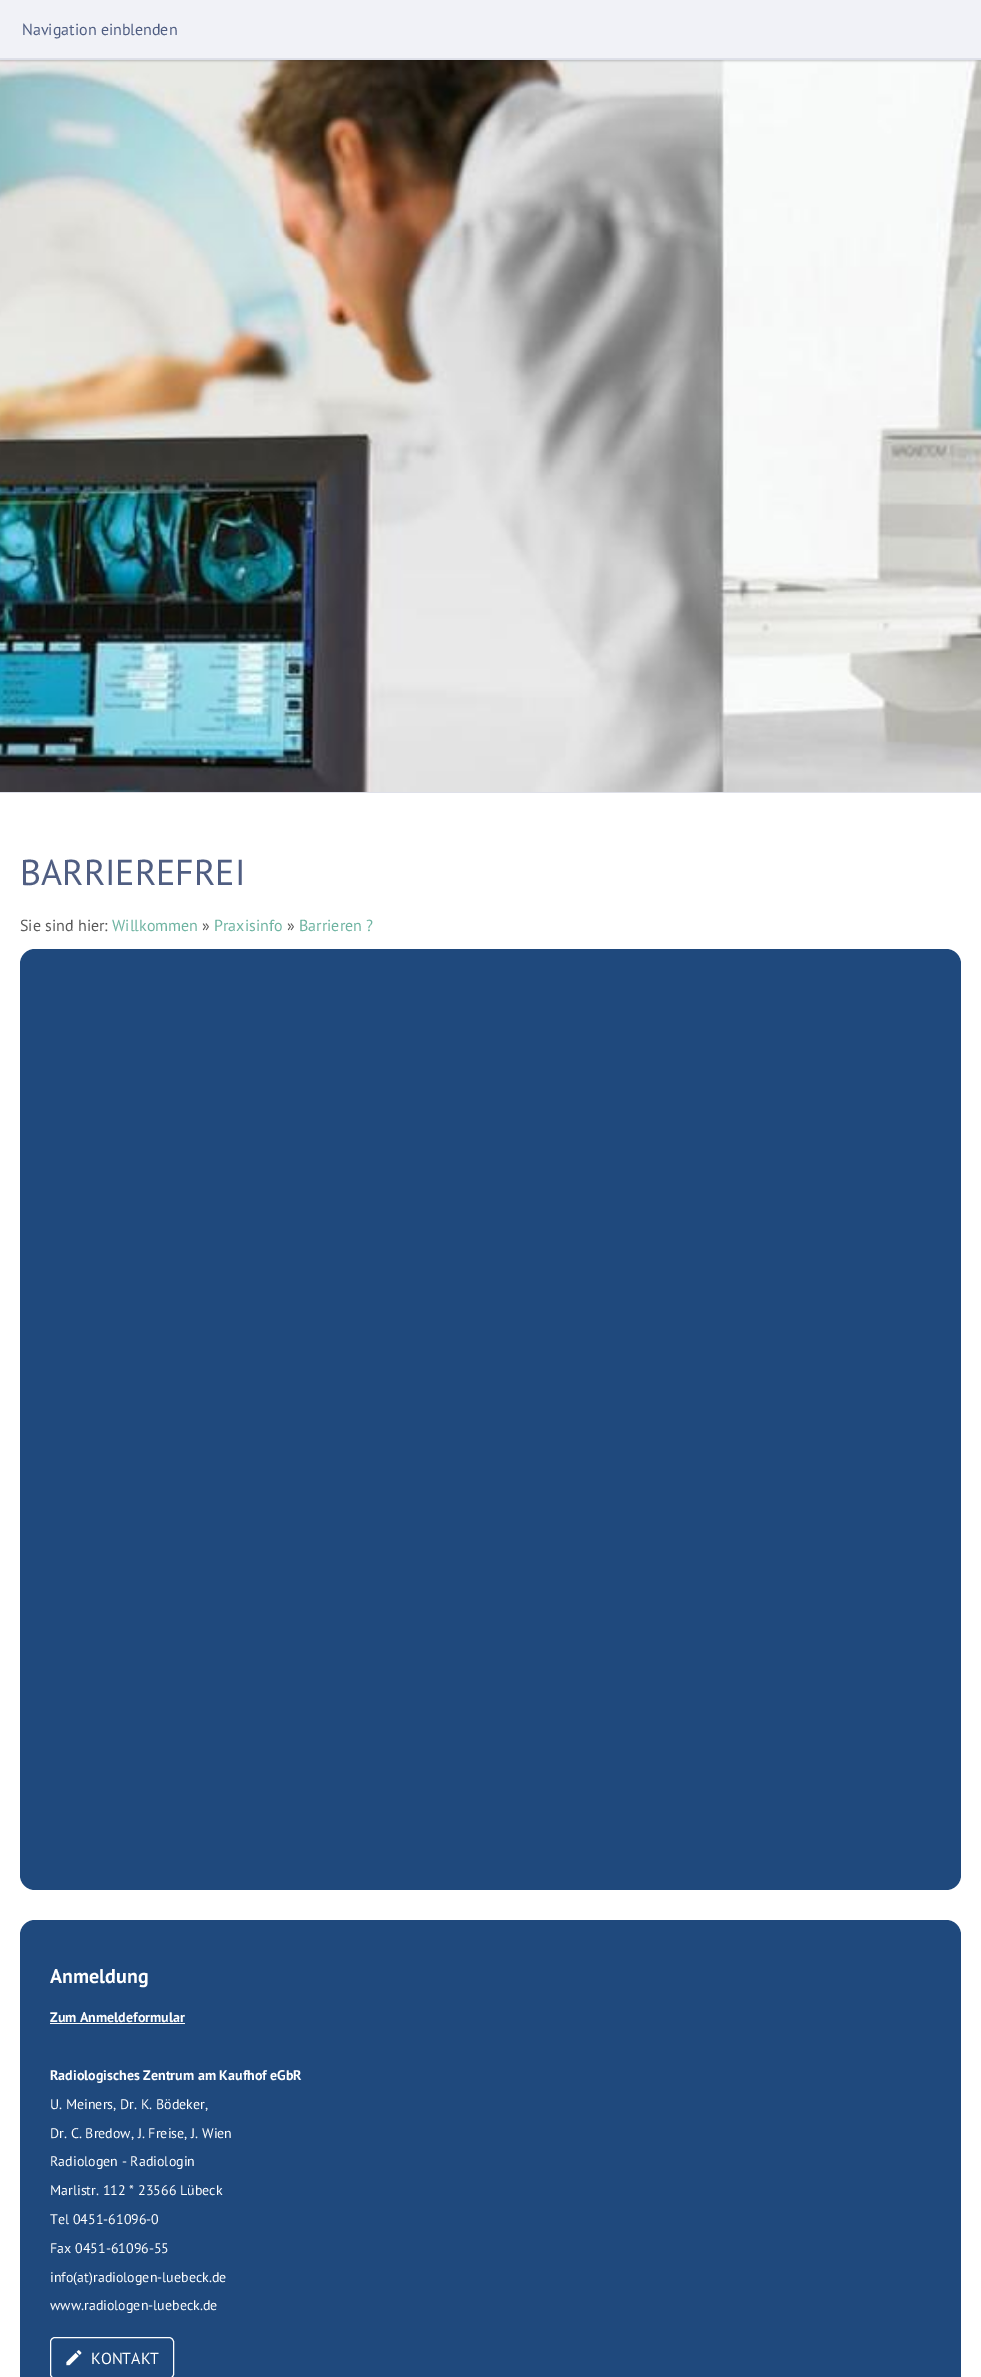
%!PS
<< /PageSize [981 2377] /PageUsesTransparency true >> setpagedevice
/rgb { dup -16 bitshift 255 div exch dup -8 bitshift 255 and 255 div exch 255 and 255 div setrgbcolor } def
/font { [ exch dup neg 0 0 3 -1 roll 0 0 ] selectfont } def
/text { moveto show } def
/alpha { dup .setfillconstantalpha .setstrokeconstantalpha } def
/roundrect { 5 dict begin { /r /h /w /y /x } { exch def } forall
  x r add y moveto x w add y 2 copy h add r arct x w add y h add x 1 index r arct
  x y h add x y r arct x y 2 copy exch w add exch r arct closepath end } def
/shadow { 12 dict begin { /a /b /q /h /w /y /x } { exch def } forall gsave /was 0 def
  9 -2 -9 { dup b mul 4 div /e exch def 1 sub .425 mul 2.718 exch exp 1 add a .99 .min exch div /now exch def
    1 1 now sub 1 was sub div sub alpha /was now def
    w h .min e 2 mul add 0 gt { x e sub y e sub w e 2 mul add h e 2 mul add
      q e add b .6 mul add w h .min 2 div e add .min 0 .max roundrect fill } if } for grestore end } def
/picture { 5 dict begin { /h /w /y /x /name } { exch def } forall
  gsave x y translate w h scale
  w h 8 [w 0 0 h 0 0] name (r) file false 3 colorimage grestore end } def
0 .pushpdf14devicefilter
0 2377 translate 1 -1 scale
4 setmiterlimit
/s1 { /PTSans-Regular 16 font 16#505E82 rgb } def
/s2 { /PTSans-Regular 36 font 16#505E82 rgb } def
/s3 { /PTSans-Regular 16 font 16#5A5A5A rgb } def
/s4 { /PTSans-Regular 16 font 16#6FB4A2 rgb } def
/s5 { /PTSans-Bold 20 font 16#FFFFFF rgb } def
/s6 { /PTSans-Bold 14 font 16#FFFFFF rgb } def
/s7 { /PTSans-Regular 14 font 16#FFFFFF rgb } def
/s8 { /PTSans-Regular 16 font 16#FFFFFF rgb } def
16#FFFFFF rgb
0 0 981 2377 rectfill
(pic1.raw) 0 60 981 732 picture
16#000000 rgb
0 1 981 60 0 1 0.2 shadow
16#F1F2F7 rgb
0 0 981 58 rectfill
16#DEE0E9 rgb
0 58 981 2 rectfill
s1
(Navigation einblenden) 22 35 text
16#DEE0E9 rgb
0 792 981 1 rectfill
s2
(BARRIEREFREI) 20 885 text
s3
(Sie sind hier:) 20 931 text
s4
(Willkommen) 112 931 text
s3
(») 202 931 text
s4
(Praxisinfo) 214 931 text
s3
(») 287 931 text
s4
(Barrieren ?) 299 931 text
16#1F497D rgb
20 949 941 941 15 roundrect fill
20 1920 941 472 15 roundrect fill
s5
(Anmeldung) 50 1983 text
s6
(Zum Anmeldeformular) 50 2022 text
50 2023 135 1 rectfill
(Radiologisches Zentrum am Kaufhof eGbR) 50 2080 text
s7
(U. Meiners, Dr. K. Bödeker,) 50 2109 text
(Dr. C. Bredow, J. Freise, J. Wien) 50 2138 text
(Radiologen - Radiologin) 50 2166 text
(Marlistr. 112 * 23566 Lübeck) 50 2195 text
(Tel 0451-61096-0) 50 2224 text
(Fax 0451-61096-55) 50 2253 text
(info\(at\)radiologen-luebeck.de) 50 2282 text
(www.radiologen-luebeck.de) 50 2310 text
50.5 2337.5 123 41 4.5 roundrect stroke
(pic2.raw) 66 2350 16 16 picture
s8
(KONTAKT) 91 2364 text
.poppdf14devicefilter showpage
